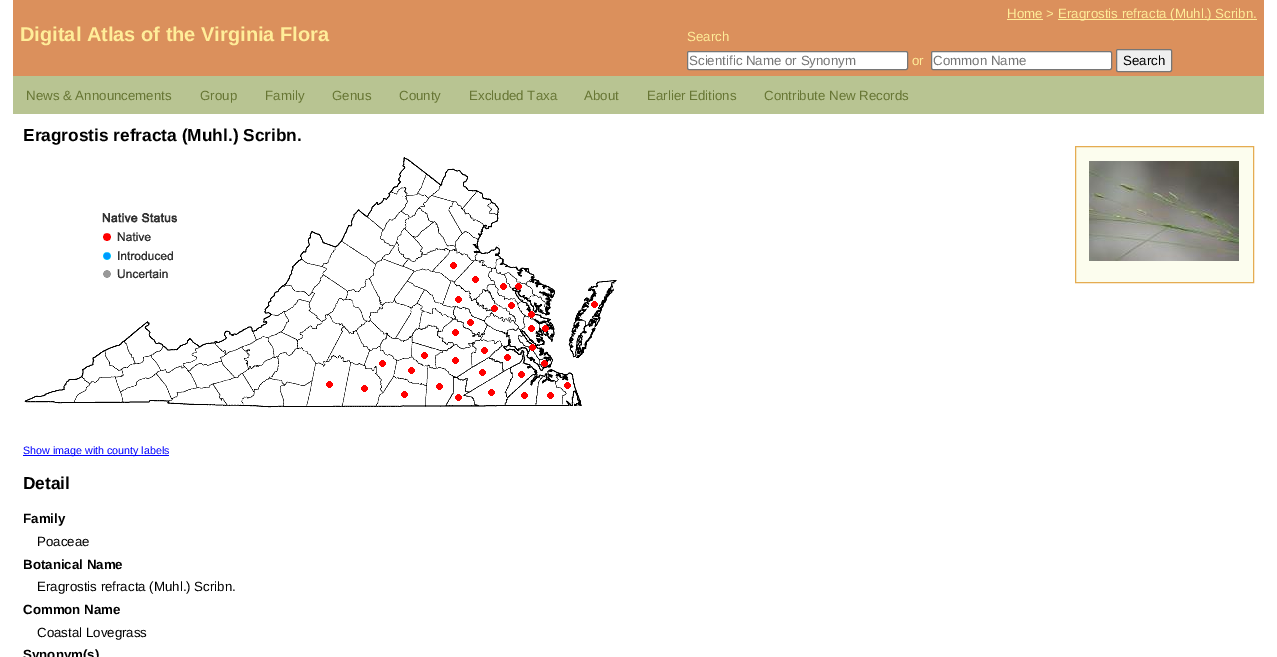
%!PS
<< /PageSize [1277 657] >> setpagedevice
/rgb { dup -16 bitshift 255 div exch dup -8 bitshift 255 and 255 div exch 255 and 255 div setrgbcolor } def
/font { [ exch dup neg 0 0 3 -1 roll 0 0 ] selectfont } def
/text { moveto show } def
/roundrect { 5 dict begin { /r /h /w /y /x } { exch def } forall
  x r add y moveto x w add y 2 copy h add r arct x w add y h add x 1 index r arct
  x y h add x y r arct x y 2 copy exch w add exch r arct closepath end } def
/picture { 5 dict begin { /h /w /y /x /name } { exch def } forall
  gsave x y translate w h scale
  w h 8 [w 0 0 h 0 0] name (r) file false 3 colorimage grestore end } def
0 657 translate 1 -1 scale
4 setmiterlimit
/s1 { /LiberationSans-Regular 13.3 font 16#FFED99 rgb } def
/s2 { /LiberationSans-Bold 20 font 16#FFED99 rgb } def
/s3 { /LiberationSans-Regular 13.3 font 16#757575 rgb } def
/s4 { /LiberationSans-Regular 13.3 font 16#000000 rgb } def
/s5 { /LiberationSans-Regular 13.3 font 16#677634 rgb } def
/s6 { /LiberationSans-Bold 17.3 font 16#000000 rgb } def
/s7 { /LiberationSans-Regular 10.7 font 16#0000FF rgb } def
/s8 { /LiberationSans-Bold 13.3 font 16#000000 rgb } def
16#FFFFFF rgb
0 0 1277 657 rectfill
16#DB905C rgb
13 0 1251 76 rectfill
s1
(Home >) 1007 18 text
1007 19 36 1 rectfill
1058 19 199 1 rectfill
(Eragrostis refracta \(Muhl.\) Scribn.) 1058 18 text
s2
(Digital Atlas of the Virginia Flora) 20 41 text
s1
(Search) 687 41 text
16#FFFFFF rgb
687.5 51.5 220 18 1.5 roundrect gsave fill grestore
16#767676 rgb
stroke
s3
(Scientific Name or Synonym) 689 65 text
s1
(or) 912 65 text
16#FFFFFF rgb
931.5 51.5 180 18 1.5 roundrect gsave fill grestore
16#767676 rgb
stroke
s3
(Common Name) 933 65 text
16#EFEFEF rgb
1116.5 49.5 55 22 1.5 roundrect gsave fill grestore
16#767676 rgb
stroke
s4
(Search) 1123 65 text
16#B8C492 rgb
13 76 1251 38 rectfill
s5
(News & Announcements) 26 100 text
(Group) 200 100 text
(Family) 265 100 text
(Genus) 332 100 text
(County) 399 100 text
(Excluded Taxa) 469 100 text
(About) 584 100 text
(Earlier Editions) 647 100 text
(Contribute New Records) 764 100 text
s6
(Eragrostis refracta \(Muhl.\) Scribn.) 23 141 text
(pic1.raw) 24 157 593 251 picture
16#FCFDEE rgb
1075.5 146.5 moveto 1253.5 146.5 lineto 1253.5 282.5 lineto 1075.5 282.5 lineto closepath gsave fill grestore
16#E5AC51 rgb
stroke
(pic2.raw) 1089 161 150 100 picture
16#0000FF rgb
23 455 146 1 rectfill
s7
(Show image with county labels) 23 454 text
s6
(Detail) 23 489 text
s8
(Family) 23 523 text
s4
(Poaceae) 37 546 text
s8
(Botanical Name) 23 569 text
s4
(Eragrostis refracta \(Muhl.\) Scribn.) 37 591 text
s8
(Common Name) 23 614 text
s4
(Coastal Lovegrass) 37 637 text
s8
(Synonym\(s\)) 23 659 text
showpage
